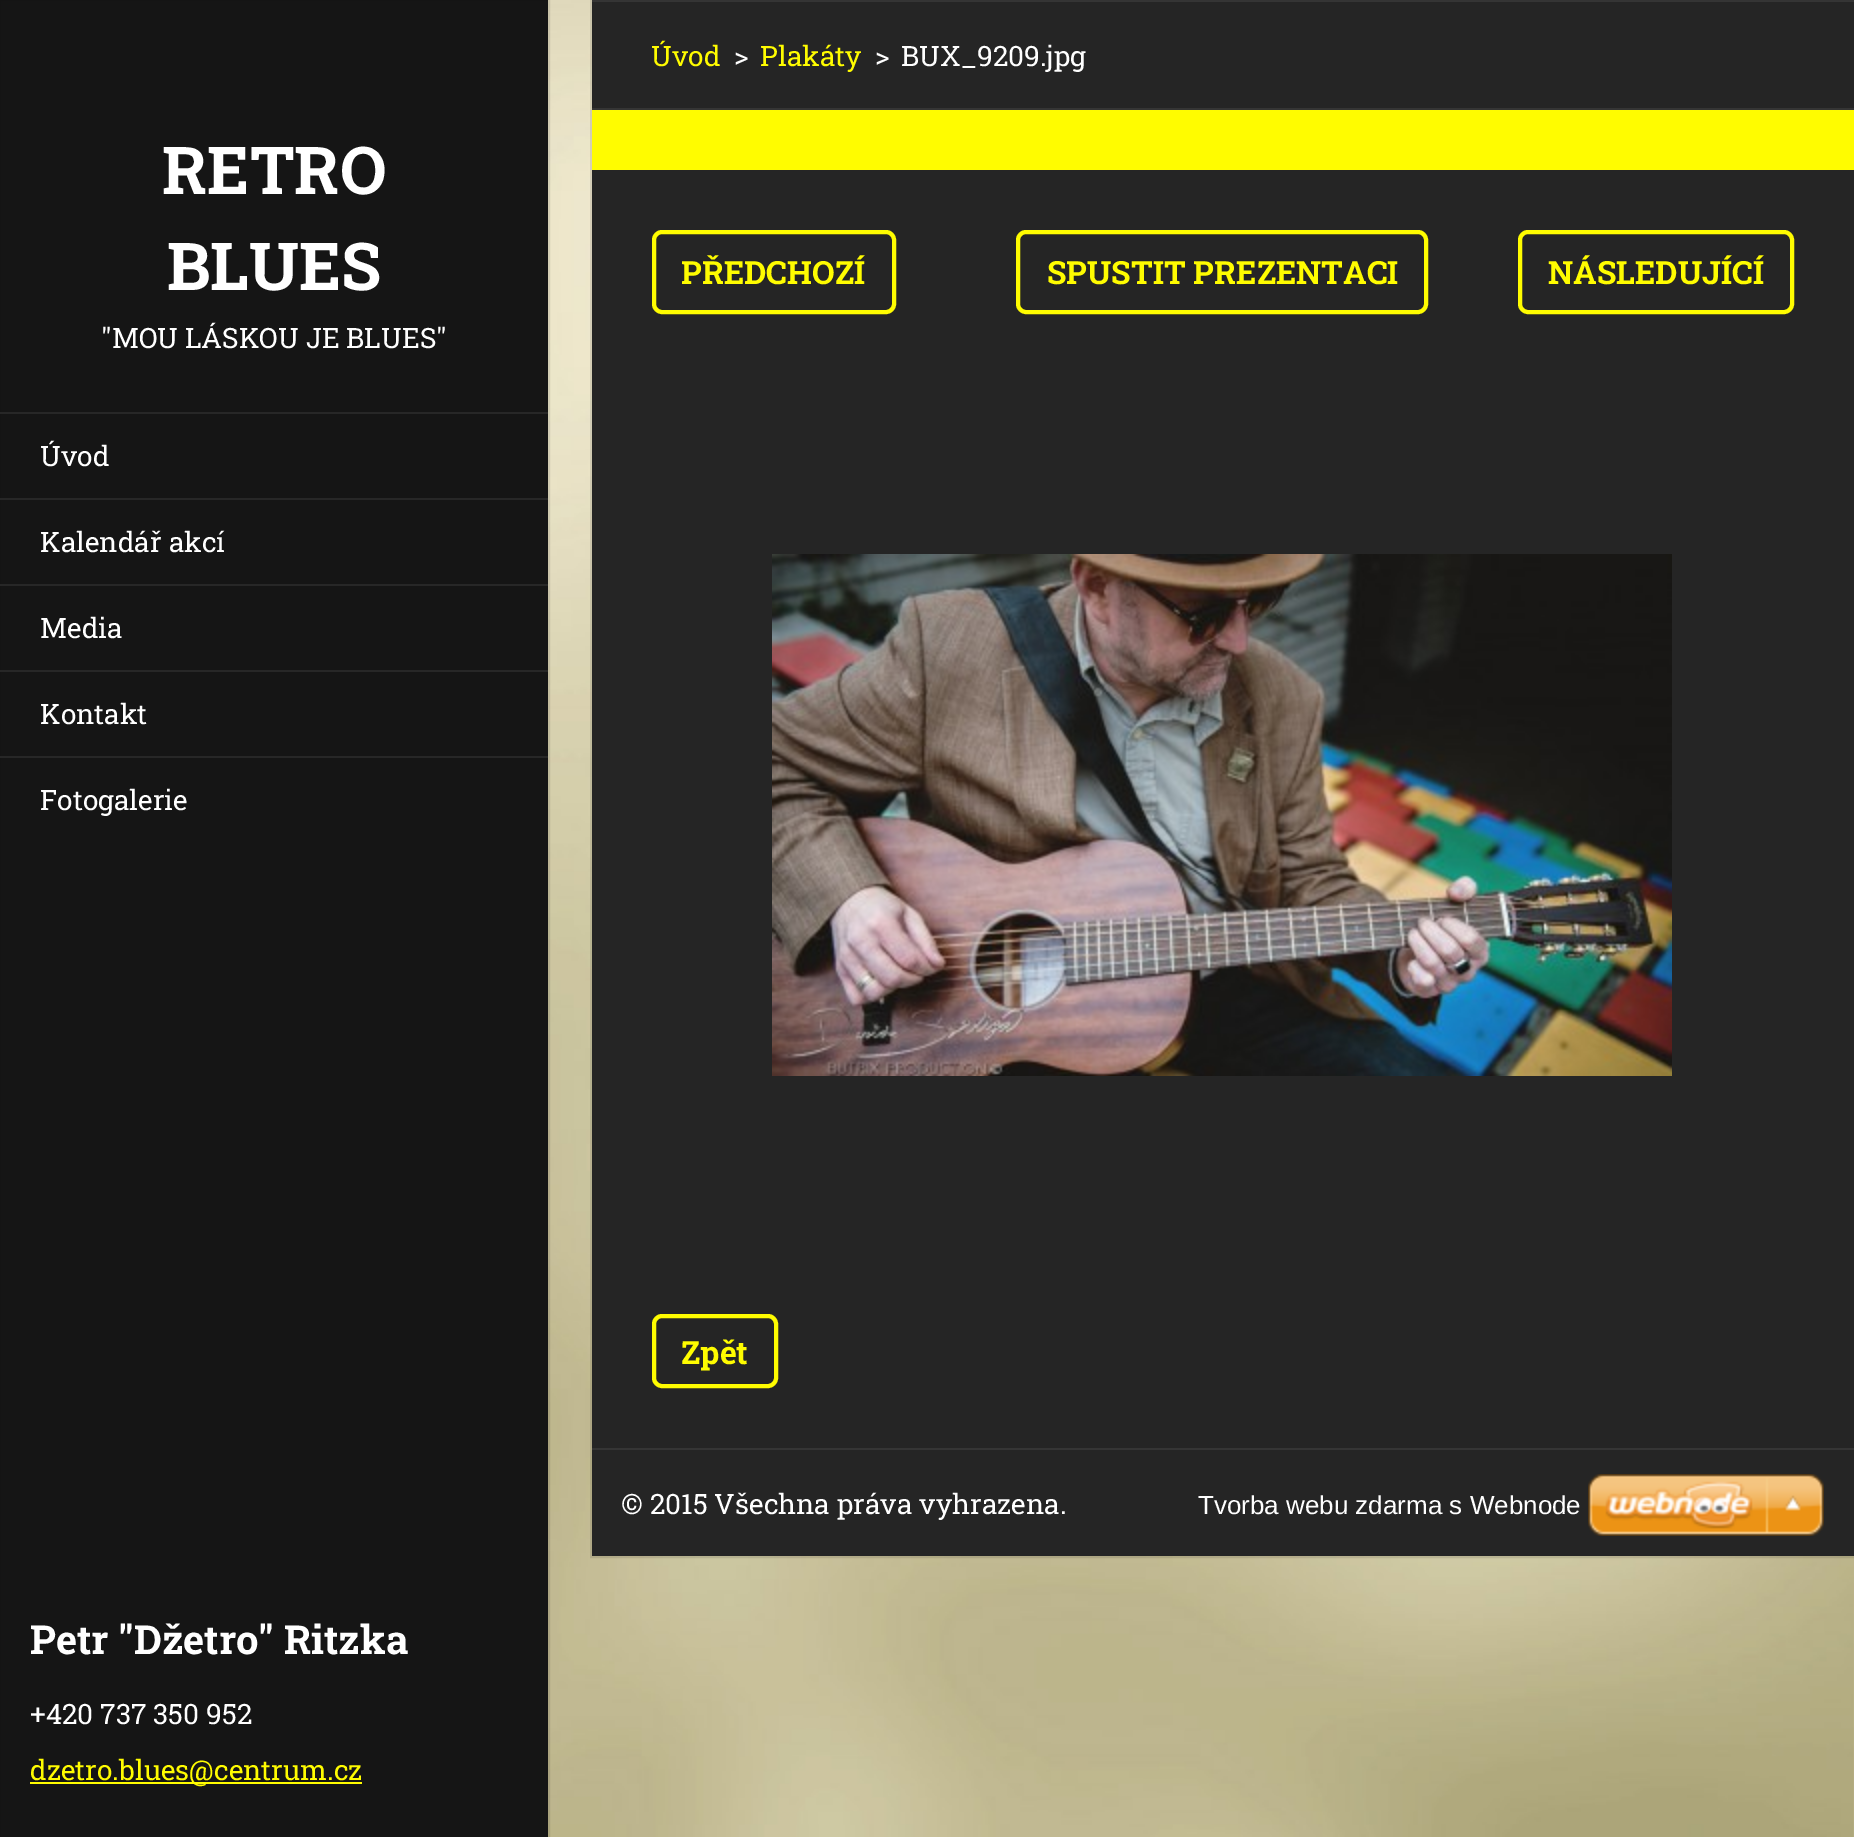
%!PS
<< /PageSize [1854 1837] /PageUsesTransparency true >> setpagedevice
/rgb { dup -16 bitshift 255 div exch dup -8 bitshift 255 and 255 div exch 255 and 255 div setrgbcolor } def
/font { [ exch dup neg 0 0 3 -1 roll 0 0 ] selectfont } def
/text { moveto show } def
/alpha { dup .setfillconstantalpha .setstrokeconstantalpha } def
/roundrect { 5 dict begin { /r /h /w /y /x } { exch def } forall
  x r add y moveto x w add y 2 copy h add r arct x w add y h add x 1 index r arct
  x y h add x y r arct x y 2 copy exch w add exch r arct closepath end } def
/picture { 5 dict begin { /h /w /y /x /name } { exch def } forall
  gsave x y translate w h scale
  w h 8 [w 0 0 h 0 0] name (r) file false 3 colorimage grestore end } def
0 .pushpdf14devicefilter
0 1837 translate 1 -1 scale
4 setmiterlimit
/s1 { /RobotoSlab-Bold 66 font 16#FFFFFF rgb } def
/s2 { /RobotoSlab-Regular 28 font 16#FFFFFF rgb } def
/s3 { /RobotoSlab-Bold 40 font 16#FFFFFF rgb } def
/s4 { /RobotoSlab-Regular 28 font 16#FFFC00 rgb } def
/s5 { /RobotoSlab-Bold 32 font 16#FFFC00 rgb } def
/s6 { /LiberationSans-Regular 26 font 16#FFFFFF rgb } def
16#BBB58B rgb
0 0 1854 1837 rectfill
(pic1.raw) 548 0 1306 1837 picture
16#151515 rgb
0 0 548 1837 rectfill
0.1 alpha
16#000000 rgb
2 setlinewidth
-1 -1 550 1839 rectstroke
1 alpha
s1
(RETRO) 162 194 text
(BLUES) 167 290 text
s2
("MOU LÁSKOU JE BLUES") 101 348 text
16#272727 rgb
0 412 548 2 rectfill
s2
(Úvod) 40 466 text
16#272727 rgb
0 498 548 2 rectfill
s2
(Kalendář akcí) 40 552 text
16#272727 rgb
0 584 548 2 rectfill
s2
(Media) 40 638 text
16#272727 rgb
0 670 548 2 rectfill
s2
(Kontakt) 40 724 text
16#272727 rgb
0 756 548 2 rectfill
s2
(Fotogalerie) 40 810 text
s3
(Petr "Džetro" Ritzka) 30 1654 text
s2
(+420 737 350 952) 30 1724 text
16#FFFC00 rgb
30 1782 332 2 rectfill
(dzetro.blues@centrum.cz) 30 1780 text
16#252525 rgb
592 2 1262 106 rectfill
16#353535 rgb
592 0 1262 2 rectfill
0.1 alpha
16#000000 rgb
591 -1 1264 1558 rectstroke
1 alpha
s4
(Úvod) 651 66 text
s2
(>) 734 66 text
s4
(Plakáty) 760 66 text
s2
(>) 875 66 text
(BUX_9209.jpg) 901 66 text
16#353535 rgb
592 108 1262 2 rectfill
16#FFFC00 rgb
592 110 1262 60 rectfill
16#252525 rgb
592 170 1262 1278 rectfill
16#FFFC00 rgb
4 setlinewidth
654 232 240 80 8 roundrect stroke
s5
(PŘEDCHOZÍ) 681 284 text
1018 232 408 80 8 roundrect stroke
(SPUSTIT PREZENTACI) 1047 284 text
1520 232 272 80 8 roundrect stroke
(NÁSLEDUJÍCÍ) 1548 284 text
(pic2.raw) 772 554 900 522 picture
654 1316 122 70 8 roundrect stroke
(Zpět) 681 1364 text
16#252525 rgb
592 1450 1262 106 rectfill
16#353535 rgb
592 1448 1262 2 rectfill
s2
(© 2015 Všechna práva vyhrazena.) 621 1514 text
s6
(Tvorba webu zdarma s Webnode) 1198 1514 text
(pic3.raw) 1588 1474 236 62 picture
.poppdf14devicefilter showpage
